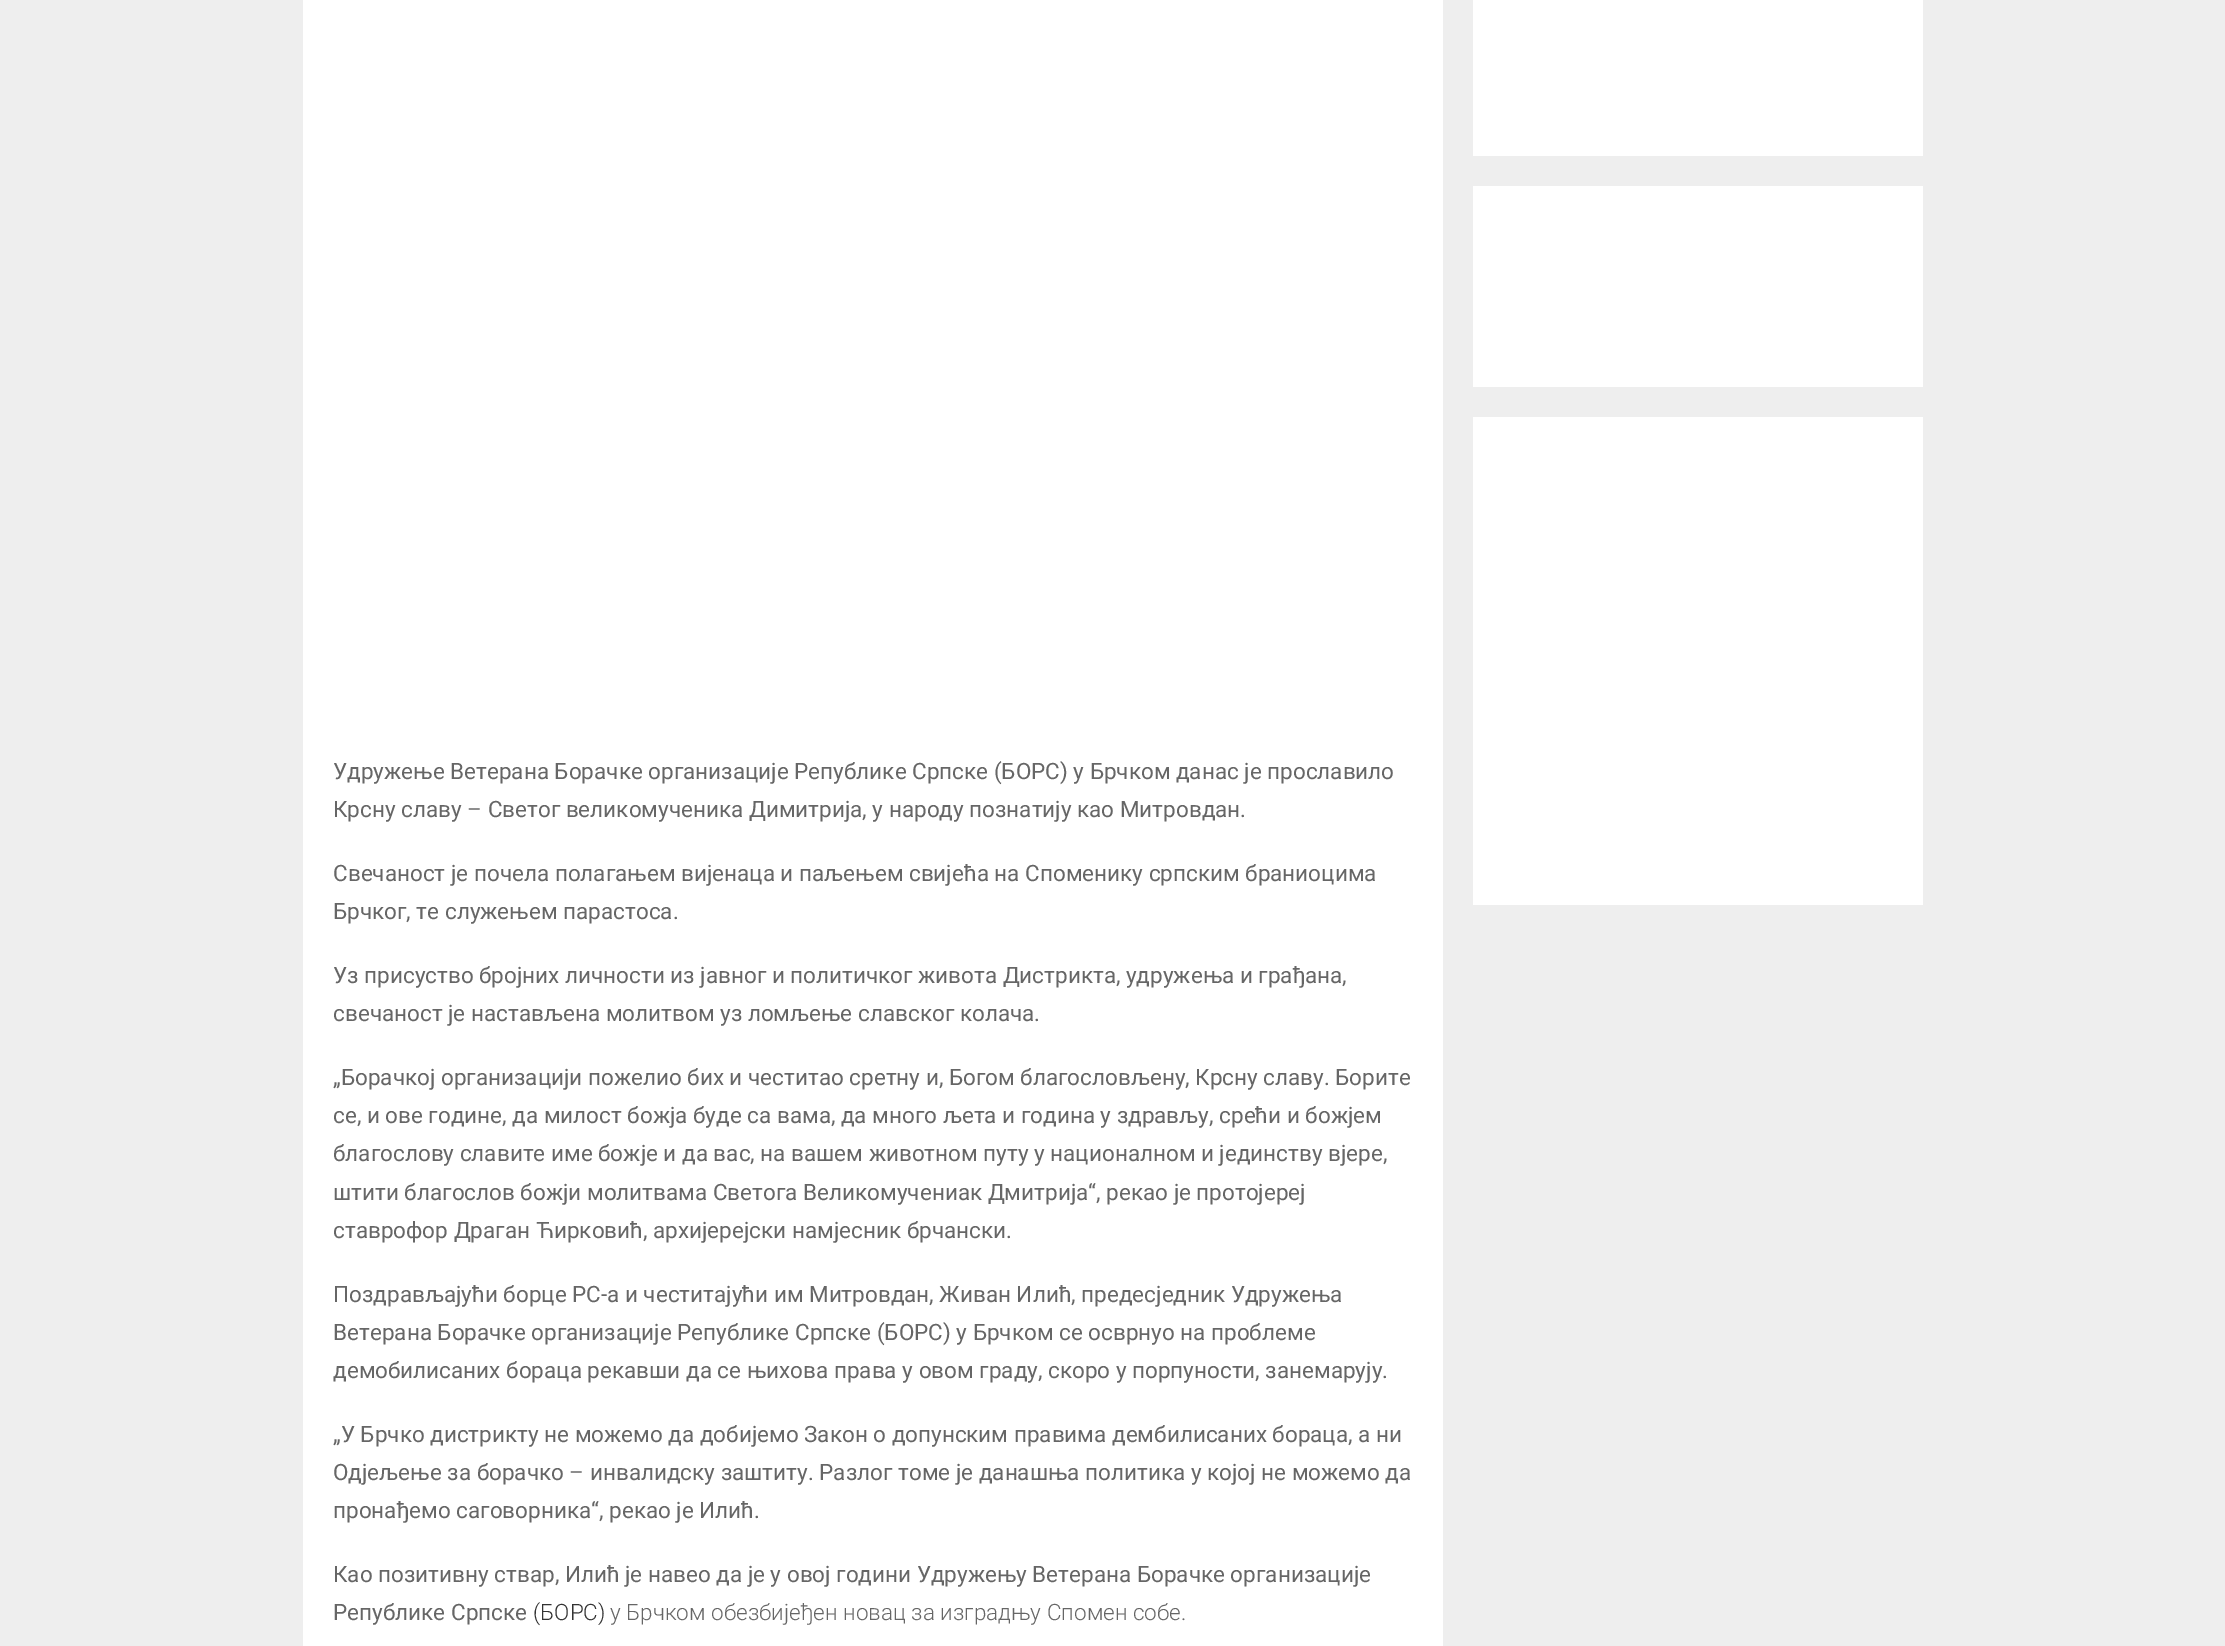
%!PS
<< /PageSize [2225 1646] >> setpagedevice
/rgb { dup -16 bitshift 255 div exch dup -8 bitshift 255 and 255 div exch 255 and 255 div setrgbcolor } def
/font { [ exch dup neg 0 0 3 -1 roll 0 0 ] selectfont } def
/text { moveto show } def
0 1646 translate 1 -1 scale
4 setmiterlimit
/s1 { /Roboto-Regular 22.5 font 16#666666 rgb } def
/s2 { /Roboto-Light 22.5 font 16#333333 rgb } def
/s3 { /Roboto-Light 22.5 font 16#666666 rgb } def
16#EEEEEE rgb
0 0 2225 1646 rectfill
16#FFFFFF rgb
1473 0 450 156 rectfill
1473 186 450 201 rectfill
1473 417 450 488 rectfill
303 0 1140 1646 rectfill
s1
(Удружење Ветерана Борачке организације Републике Српске \(БОРС\) у Брчком данас је прославило) 333 779 text
(Крсну славу – Светог великомученика Димитрија, у народу познатију као Митровдан.) 333 817 text
(Свечаност је почела полагањем вијенаца и паљењем свијећа на Споменику српским браниоцима) 333 881 text
(Брчког, те служењем парастоса.) 333 919 text
(Уз присуство бројних личности из јавног и политичког живота Дистрикта, удружења и грађана,) 333 983 text
(свечаност је настављена молитвом уз ломљење славског колача.) 333 1021 text
(„Борачкој организацији пожелио бих и честитао сретну и, Богом благословљену, Крсну славу. Борите) 333 1085 text
(се, и ове године, да милост божја буде са вама, да много љета и година у здрављу, срећи и божјем) 333 1123 text
(благослову славите име божје и да вас, на вашем животном путу у националном и јединству вјере,) 333 1161 text
(штити благослов божји молитвама Светога Великомучениак Дмитрија“, рекао је протојереј) 333 1200 text
(ставрофор Драган Ћирковић, архијерејски намјесник брчански.) 333 1238 text
(Поздрављајући борце РС-а и честитајући им Митровдан, Живан Илић, предесједник Удружења) 333 1302 text
(Ветерана Борачке организације Републике Српске \(БОРС\) у Брчком се осврнуо на проблеме) 333 1340 text
(демобилисаних бораца рекавши да се њихова права у овом граду, скоро у порпуности, занемарују.) 333 1378 text
(„У Брчко дистрикту не можемо да добијемо Закон о допунским правима дембилисаних бораца, а ни) 333 1442 text
(Одјељење за борачко – инвалидску заштиту. Разлог томе је данашња политика у којој не можемо да) 333 1480 text
(пронађемо саговорника“, рекао је Илић.) 333 1518 text
(Као позитивну ствар, Илић је навео да је у овој години Удружењу Ветерана Борачке организације) 333 1582 text
(Републике Српске) 333 1620 text
s2
(\(БОРС\)) 533 1620 text
s3
(у Брчком обезбијеђен новац за изградњу Спомен собе.) 610 1620 text
showpage
